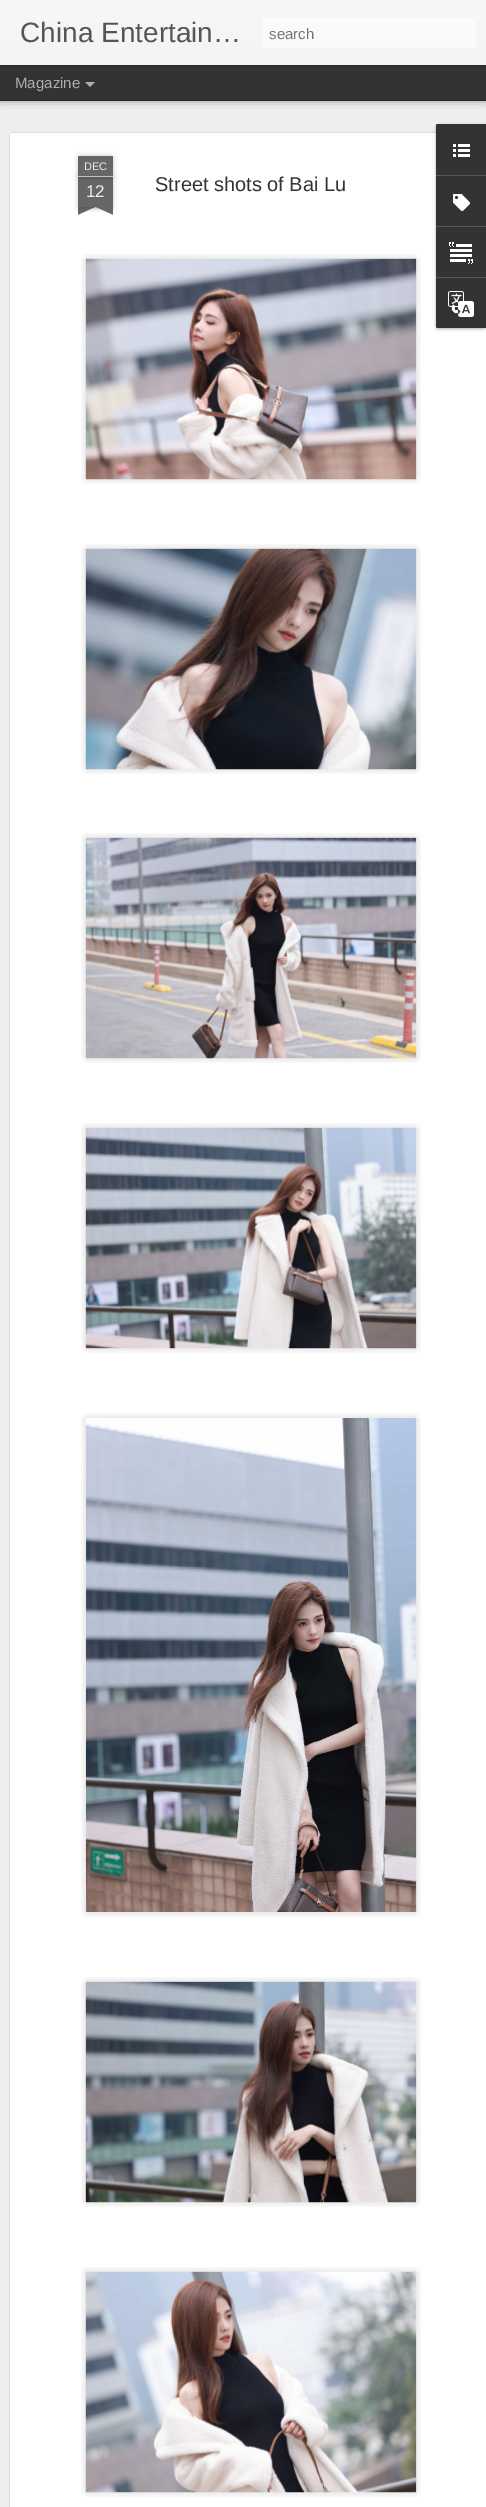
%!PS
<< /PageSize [486 2507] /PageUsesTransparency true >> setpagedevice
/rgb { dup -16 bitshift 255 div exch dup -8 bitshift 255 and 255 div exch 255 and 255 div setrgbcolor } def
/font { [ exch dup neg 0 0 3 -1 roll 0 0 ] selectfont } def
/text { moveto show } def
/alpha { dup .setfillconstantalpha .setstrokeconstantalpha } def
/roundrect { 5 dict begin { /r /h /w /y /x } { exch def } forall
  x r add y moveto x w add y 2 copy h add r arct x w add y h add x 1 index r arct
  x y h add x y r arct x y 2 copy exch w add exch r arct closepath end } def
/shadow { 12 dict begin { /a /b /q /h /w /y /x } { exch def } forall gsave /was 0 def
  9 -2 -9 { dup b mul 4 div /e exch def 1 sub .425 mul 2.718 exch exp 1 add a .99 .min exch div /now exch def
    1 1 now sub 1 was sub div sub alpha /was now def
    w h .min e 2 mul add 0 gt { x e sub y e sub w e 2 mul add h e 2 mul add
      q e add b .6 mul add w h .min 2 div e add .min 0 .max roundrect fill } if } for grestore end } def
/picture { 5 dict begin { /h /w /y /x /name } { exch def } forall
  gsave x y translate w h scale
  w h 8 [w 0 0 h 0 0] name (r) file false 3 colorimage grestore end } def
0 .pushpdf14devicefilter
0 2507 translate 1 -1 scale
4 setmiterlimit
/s1 { /LiberationSans-Regular 28 font 16#555555 rgb } def
/s2 { /LiberationSans-Regular 15 font 16#757575 rgb } def
/s3 { /LiberationSans-Regular 15 font 16#ADADAD rgb } def
/s4 { /LiberationSans-Regular 11 font 16#EEEEEE rgb } def
/s5 { /LiberationSans-Regular 17 font 16#EEEEEE rgb } def
/s6 { /LiberationSans-Regular 20 font 16#333333 rgb } def
16#333333 rgb
0 0 486 2507 rectfill
16#EEEEEE rgb
0 101 486 2406 rectfill
16#000000 rgb
0 65 486 35 0 4 0.5 shadow
16#333333 rgb
0 65 486 35 rectfill
16#000000 rgb
0 0 486 65 0 2.5 0.3 shadow
gsave 0 0 moveto 486 0 lineto 486 65 lineto 0 65 lineto closepath clip newpath
<< /ShadingType 2 /ColorSpace /DeviceRGB /Coords [0 0 0 65] /Extend [true true] /Function << /FunctionType 2 /Domain [0 1] /C0 [0.969 0.969 0.969] /C1 [0.957 0.957 0.957] /N 1 >> >> shfill grestore
s1
(China Entertain…) 20 42 text
16#FAFAFA rgb
262 18 214 30 3 roundrect fill
s2
(search) 269 39 text
s3
(Magazine) 15 88 text
85 82 moveto 95 82 lineto 90 87 lineto closepath fill
16#FFFFFF rgb
8 131 478 2376 rectfill
(pic1.raw) 8 131 428 2376 picture
16#000000 rgb
78 177 35 30 0 2.5 0.2 shadow
16#666666 rgb
78 177 35 30 rectfill
16#000000 rgb
78 156 35 21 1 2.5 0.2 shadow
16#666666 rgb
79 156 moveto 112 156 lineto 112.5 156 113 156.5 113 157 curveto 113 177 lineto 78 177 lineto 78 157 lineto 78 156.5 78.5 156 79 156 curveto closepath fill
16#C2C2C2 rgb
78 176 35 1 rectfill
s4
(DEC) 84 170 text
s5
(12) 86 197 text
gsave
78 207 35 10 rectclip
16#000000 rgb
69 197 50 10 0 2.5 0.2 shadow
grestore
gsave
78 207 35 10 rectclip
16#666666 rgb
69 208 moveto 115 187 lineto 119 196 lineto 73 217 lineto closepath fill
grestore
gsave
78 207 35 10 rectclip
16#000000 rgb
72 197 50 10 0 2.5 0.2 shadow
grestore
gsave
78 207 35 10 rectclip
16#666666 rgb
76 187 moveto 122 208 lineto 118 217 lineto 72 196 lineto closepath fill
grestore
s6
(Street shots of Bai Lu) 155 191 text
(pic2.raw) 81 254 340 230 picture
(pic3.raw) 85 258 332 222 picture
(pic4.raw) 81 544 340 230 picture
(pic5.raw) 85 548 332 222 picture
(pic6.raw) 81 833 340 230 picture
(pic7.raw) 85 837 332 222 picture
(pic8.raw) 81 1123 340 230 picture
(pic9.raw) 85 1127 332 222 picture
(pic10.raw) 81 1413 340 504 picture
(pic11.raw) 85 1418 332 494 picture
(pic12.raw) 81 1977 340 230 picture
(pic13.raw) 85 1981 332 222 picture
(pic14.raw) 81 2267 340 230 picture
(pic15.raw) 85 2271 332 222 picture
16#000000 rgb
436 125 50 204 2 1.5 0.3 shadow
16#333333 rgb
438 124 moveto 486 124 lineto 486 328 lineto 438 328 lineto 437 328 436 327 436 326 curveto 436 126 lineto 436 125 437 124 438 124 curveto closepath fill
438 124 moveto 486 124 lineto 486 175 lineto 436 175 lineto 436 126 lineto 436 125 437 124 438 124 curveto closepath fill
(pic16.raw) 453 144 17 13 picture
16#585858 rgb
436 175 50 1 rectfill
(pic17.raw) 453 194 17 17 picture
436 226 50 1 rectfill
(pic18.raw) 449 242 24 22 picture
16#333333 rgb
436 277 moveto 486 277 lineto 486 328 lineto 438 328 lineto 437 328 436 327 436 326 curveto closepath fill
16#585858 rgb
436 277 50 1 rectfill
(pic19.raw) 448 291 26 26 picture
.poppdf14devicefilter showpage
